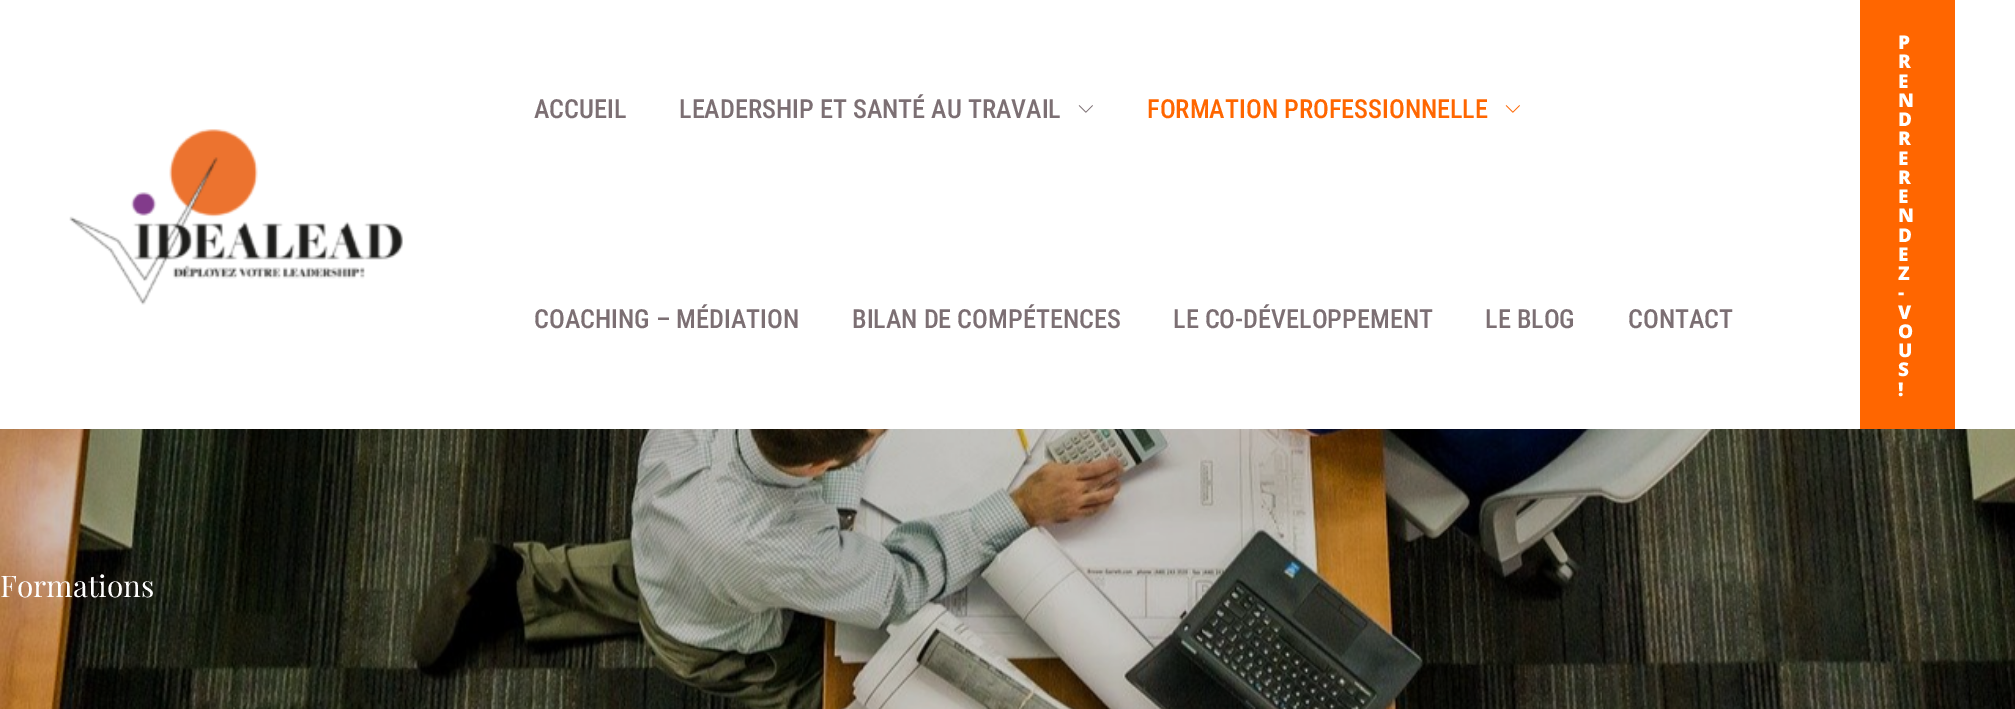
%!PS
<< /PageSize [2015 709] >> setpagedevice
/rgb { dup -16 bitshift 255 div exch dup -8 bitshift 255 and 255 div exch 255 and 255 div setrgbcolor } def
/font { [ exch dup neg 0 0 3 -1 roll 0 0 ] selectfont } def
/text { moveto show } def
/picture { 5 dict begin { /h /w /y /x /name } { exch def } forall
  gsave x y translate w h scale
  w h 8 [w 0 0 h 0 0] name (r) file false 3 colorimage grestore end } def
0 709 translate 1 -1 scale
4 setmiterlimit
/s1 { /RobotoCondensed-Medium 26.25 font 16#7C6F73 rgb } def
/s2 { /RobotoCondensed-Medium 26.25 font 16#FF6600 rgb } def
/s3 { /PlayfairDisplay-Regular 29.75 font 16#FFFFFF rgb } def
16#FFFFFF rgb
0 0 2015 709 rectfill
(pic1.raw) 69 129 334 176 picture
s1
(ACCUEIL) 534 118 text
(LEADERSHIP ET SANTÉ AU TRAVAIL) 679 118 text
(pic2.raw) 1078 105 15 8 picture
s2
(FORMATION PROFESSIONNELLE) 1147 118 text
(pic3.raw) 1505 105 15 8 picture
s1
(COACHING – MÉDIATION) 534 328 text
(BILAN DE COMPÉTENCES) 852 328 text
(LE CO-DÉVELOPPEMENT) 1173 328 text
(LE BLOG) 1485 328 text
(CONTACT) 1628 328 text
16#FF6600 rgb
1860 0 95 429 rectfill
/OpenSans-ExtraBold 19 font
16#FFFFFF rgb
1898 49 moveto 2 0 (P) ashow
1898 68 moveto 2 0 (R) ashow
1898 88 moveto 2 0 (E) ashow
1898 107 moveto 2 0 (N) ashow
1898 126 moveto 2 0 (D) ashow
1898 145 moveto 2 0 (R) ashow
1898 165 moveto 2 0 (E) ashow
1898 184 moveto 2 0 (R) ashow
1898 203 moveto 2 0 (E) ashow
1898 222 moveto 2 0 (N) ashow
1898 242 moveto 2 0 (D) ashow
1898 261 moveto 2 0 (E) ashow
1898 280 moveto 2 0 (Z) ashow
1898 299 moveto 2 0 (-) ashow
1898 319 moveto 2 0 (V) ashow
1898 338 moveto 2 0 (O) ashow
1898 357 moveto 2 0 (U) ashow
1898 376 moveto 2 0 (S) ashow
1898 396 moveto 2 0 (!) ashow
(pic4.raw) 0 429 2015 280 picture
s3
(Formations) 0 597 text
showpage
